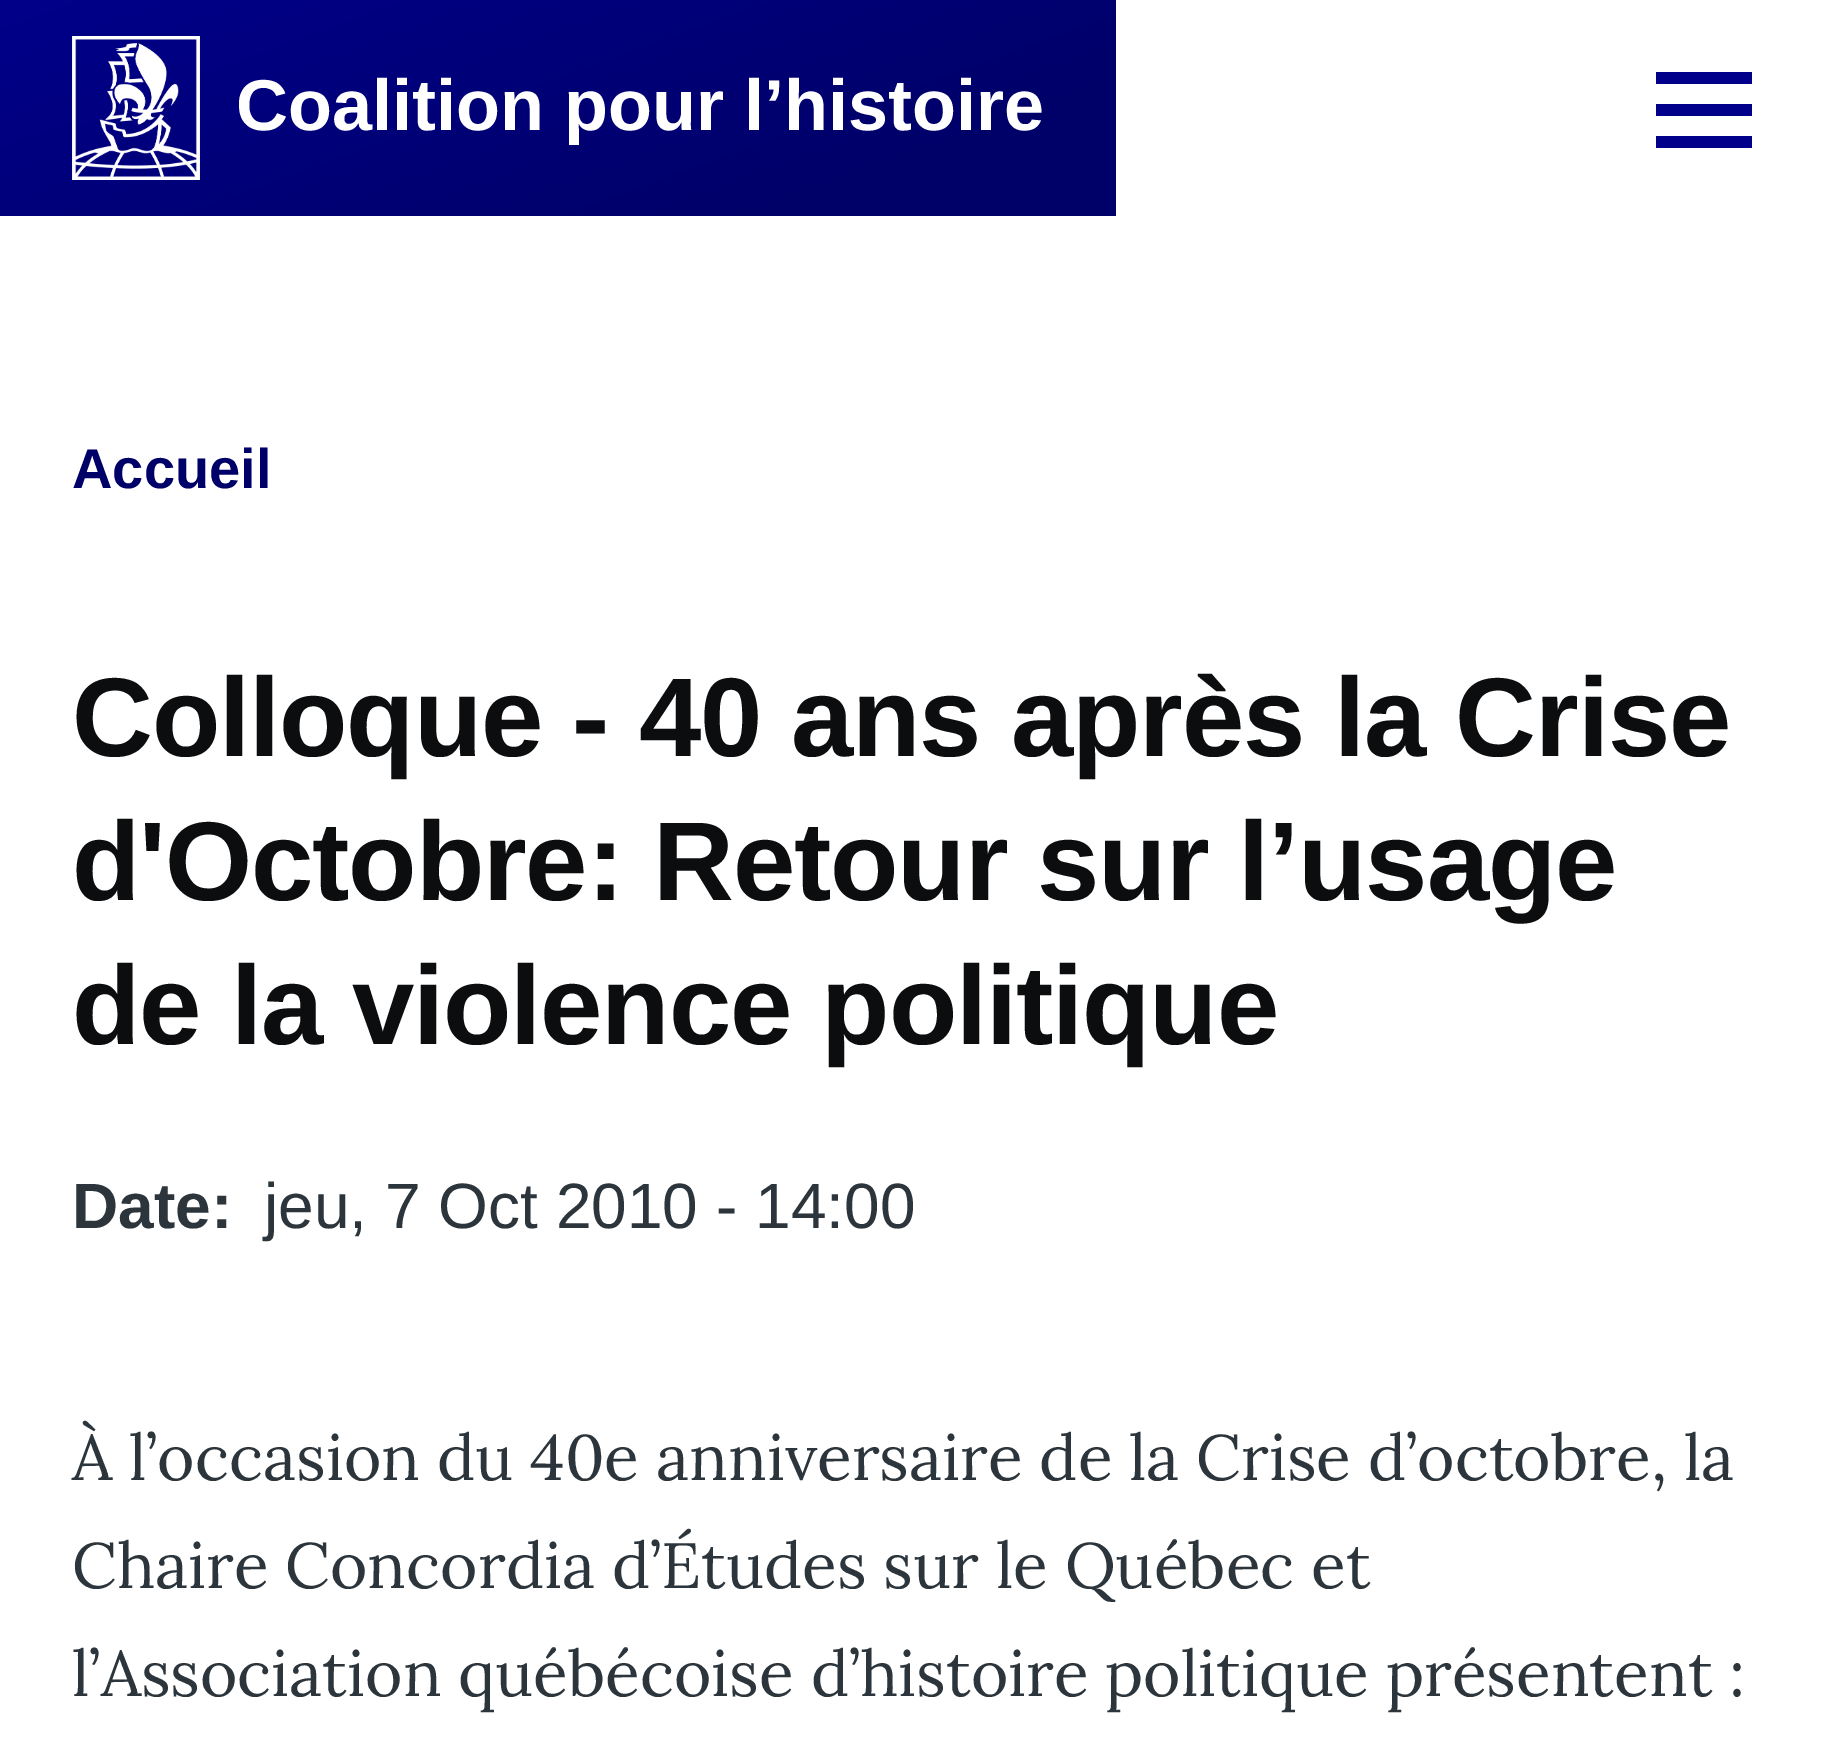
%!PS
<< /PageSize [1822 1747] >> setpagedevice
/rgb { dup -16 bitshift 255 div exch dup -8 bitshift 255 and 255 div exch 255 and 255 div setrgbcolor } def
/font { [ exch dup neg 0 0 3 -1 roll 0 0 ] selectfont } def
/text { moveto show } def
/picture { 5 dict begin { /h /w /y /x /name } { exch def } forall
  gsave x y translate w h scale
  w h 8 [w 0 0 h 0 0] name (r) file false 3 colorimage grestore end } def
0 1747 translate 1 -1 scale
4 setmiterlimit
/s1 { /LiberationSans-Bold 72 font 16#FFFFFF rgb } def
/s2 { /LiberationSans-Bold 56 font 16#000069 rgb } def
/s3 { /LiberationSans-Bold 64 font 16#2B353B rgb } def
/s4 { /LiberationSans-Regular 64 font 16#2B353B rgb } def
/s5 { /Lora-Regular 64 font 16#2B353B rgb } def
16#FFFFFF rgb
0 0 1822 1747 rectfill
gsave 0 0 moveto 1116 0 lineto 1116 216 lineto 0 216 lineto closepath clip newpath
<< /ShadingType 2 /ColorSpace /DeviceRGB /Coords [458 -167 658 383] /Extend [true true] /Function << /FunctionType 3 /Domain [0 1] /Functions [<< /FunctionType 2 /Domain [0 1] /C0 [0 0 0.541] /C1 [0 0 0.412] /N 1 >> << /FunctionType 2 /Domain [0 1] /C0 [0 0 0.412] /C1 [0 0 0.412] /N 1 >>] /Bounds [0.79] /Encode [0 1 0 1] >> >> shfill grestore
(pic1.raw) 72 36 128 144 picture
s1
(Coalition pour l’histoire) 236 130 text
16#00008A rgb
1656 104 96 12 rectfill
1656 72 96 12 rectfill
1656 136 96 12 rectfill
s2
(Accueil) 72 488 text
/LiberationSans-Bold 112 font
16#0B0D0F rgb
72 756 moveto -1.1 0 (Colloque - 40 ans après la Crise) ashow
72 900 moveto -1.1 0 (d'Octobre: Retour sur l’usage) ashow
72 1044 moveto -1.1 0 (de la violence politique) ashow
s3
(Date:) 72 1228 text
s4
(jeu, 7 Oct 2010 - 14:00) 264 1228 text
s5
(À l’occasion du 40e anniversaire de la Crise d’octobre, la) 72 1480 text
(Chaire Concordia d’Études sur le Québec et) 72 1588 text
(l’Association québécoise d’histoire politique présentent :) 72 1696 text
showpage
